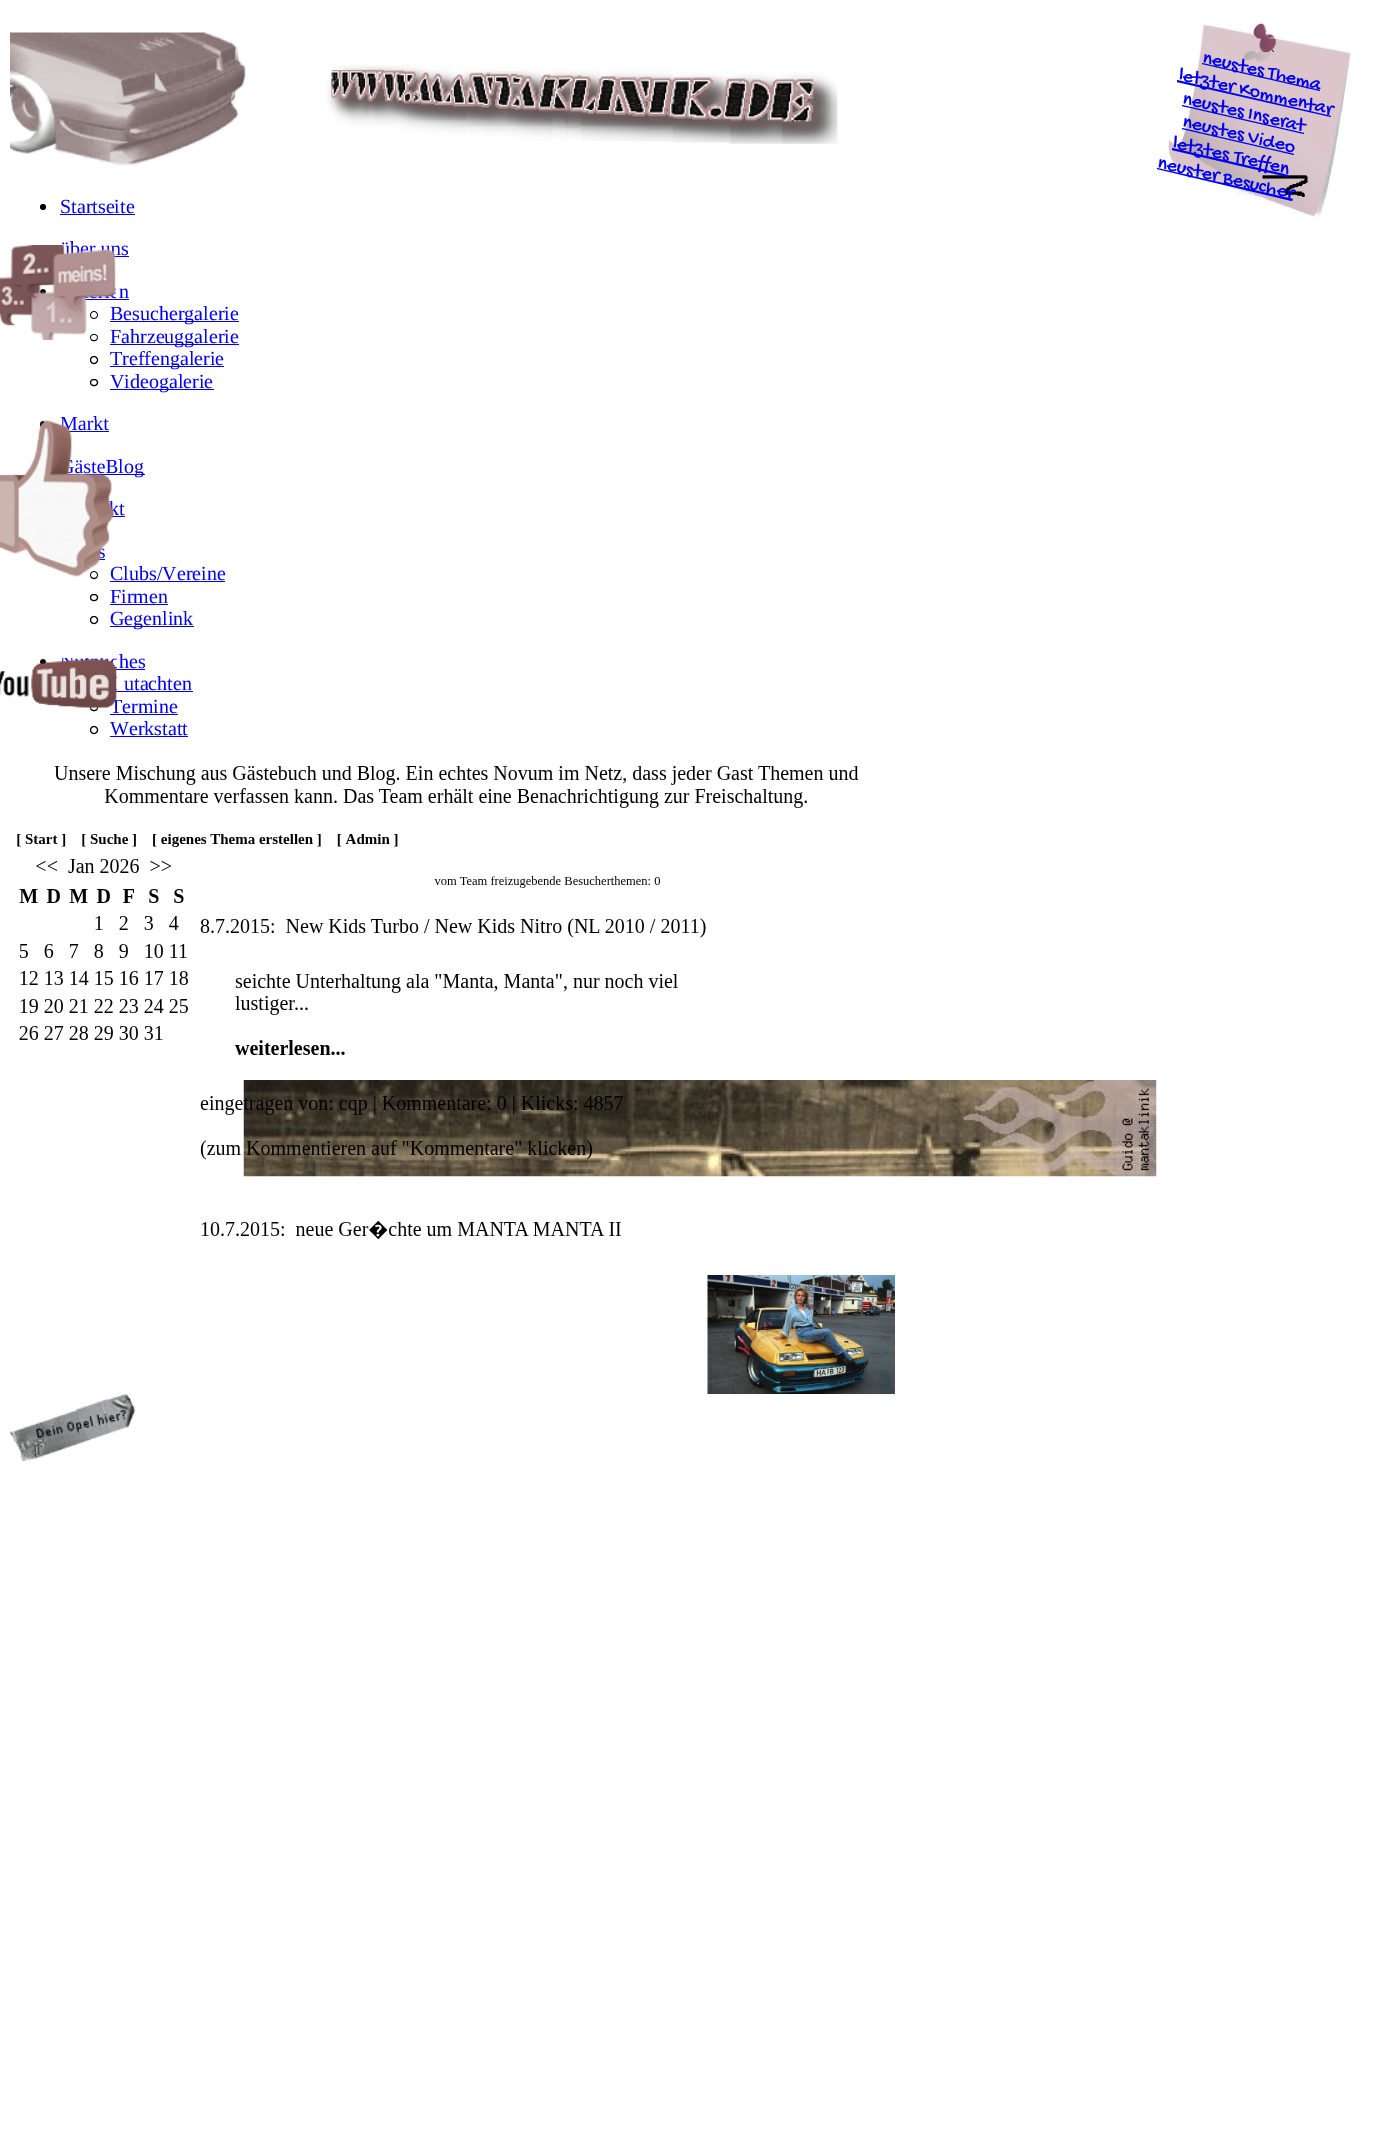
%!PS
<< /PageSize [1399 2143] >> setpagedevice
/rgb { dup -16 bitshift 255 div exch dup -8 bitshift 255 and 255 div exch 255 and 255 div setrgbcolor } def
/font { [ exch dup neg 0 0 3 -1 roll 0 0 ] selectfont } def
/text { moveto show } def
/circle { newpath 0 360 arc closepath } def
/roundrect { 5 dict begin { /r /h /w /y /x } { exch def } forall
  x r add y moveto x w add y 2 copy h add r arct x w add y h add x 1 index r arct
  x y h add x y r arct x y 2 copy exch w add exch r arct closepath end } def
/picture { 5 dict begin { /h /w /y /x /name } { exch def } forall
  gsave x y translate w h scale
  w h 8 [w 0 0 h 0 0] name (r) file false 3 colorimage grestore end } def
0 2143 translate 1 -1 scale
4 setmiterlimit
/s1 { /LiberationSerif-Regular 20 font 16#0000EE rgb } def
16#FFFFFF rgb
0 0 1399 2143 rectfill
(pic1.raw) 10 32 236 134 picture
(pic2.raw) 327 65 511 79 picture
(pic3.raw) 1168 22 183 195 picture
16#0000EE rgb
1202 63 moveto 1320 90 lineto 1320 91 lineto 1202 64 lineto closepath fill
/GochiHand-Regular 20 font
gsave 1202 62 translate 13 rotate 0 0 moveto (neustes Thema) show grestore
1177 80 moveto 1331 116 lineto 1331 117 lineto 1177 82 lineto closepath fill
gsave 1178 79 translate 13 rotate 0 0 moveto (letzter Kommentar) show grestore
1182 105 moveto 1304 133 lineto 1304 134 lineto 1182 106 lineto closepath fill
gsave 1182 103 translate 13 rotate 0 0 moveto (neustes Inserat) show grestore
1182 128 moveto 1294 154 lineto 1294 155 lineto 1182 129 lineto closepath fill
gsave 1182 126 translate 13 rotate 0 0 moveto (neustes Video) show grestore
1172 148 moveto 1288 175 lineto 1288 177 lineto 1172 150 lineto closepath fill
gsave 1172 147 translate 13 rotate 0 0 moveto (letztes Treffen) show grestore
1157 168 moveto 1293 199 lineto 1292 201 lineto 1157 169 lineto closepath fill
gsave 1157 167 translate 13 rotate 0 0 moveto (neuster Besucher) show grestore
s1
(über uns) 60 255 text
113 256 16 1 rectfill
16#000000 rgb
43 292 3 circle fill
16#0000EE rgb
84 299 45 1 rectfill
16#000000 rgb
94 315 3.5 circle stroke
16#0000EE rgb
110 321 129 1 rectfill
(Besuchergalerie) 110 320 text
16#000000 rgb
90.5 334.5 7 6 3 roundrect stroke
16#0000EE rgb
110 344 129 1 rectfill
(Fahrzeuggalerie) 110 343 text
(pic4.raw) 0 245 116 95 picture
16#000000 rgb
43 207 3 circle fill
s1
(Startseite) 60 213 text
60 214 75 1 rectfill
(n) 119 298 text
16#000000 rgb
94 360 3.5 circle stroke
16#0000EE rgb
110 366 114 1 rectfill
(Treffengalerie) 110 365 text
16#000000 rgb
90.5 379.5 7 6 3 roundrect stroke
16#0000EE rgb
110 389 104 1 rectfill
(Videogalerie) 110 388 text
16#000000 rgb
40 421 6 7 3 roundrect fill
s1
(Markt) 60 430 text
60 431 49 1 rectfill
60 474 85 1 rectfill
(ästeBlog) 74 473 text
(kt) 109 515 text
112 516 13 1 rectfill
(s) 98 558 text
98 559 7 1 rectfill
16#000000 rgb
94 575 3.5 circle stroke
s1
(Clubs/Vereine) 110 580 text
110 581 115 1 rectfill
16#000000 rgb
90.5 594.5 7 6 3 roundrect stroke
s1
(Firmen) 110 603 text
110 604 58 1 rectfill
16#000000 rgb
94 620 3.5 circle stroke
16#0000EE rgb
110 626 84 1 rectfill
(Gegenlink) 110 625 text
16#000000 rgb
43 662 3 circle fill
s1
(hes) 119 668 text
115 669 30 1 rectfill
16#000000 rgb
94 685 3.5 circle stroke
s1
(utachten) 124 690 text
110 691 83 1 rectfill
16#000000 rgb
90.5 704.5 7 6 3 roundrect stroke
s1
(Termine) 110 713 text
110 714 68 1 rectfill
16#000000 rgb
94 730 3.5 circle stroke
s1
(Werkstatt) 110 735 text
110 736 78 1 rectfill
(pic5.raw) 0 420 114 157 picture
(pic6.raw) 0 658 117 51 picture
(pic8.raw) 243 1080 914 97 picture
(pic9.raw) 10 1393 126 69 picture
(pic7.raw) 17 766 878 628 picture
showpage
